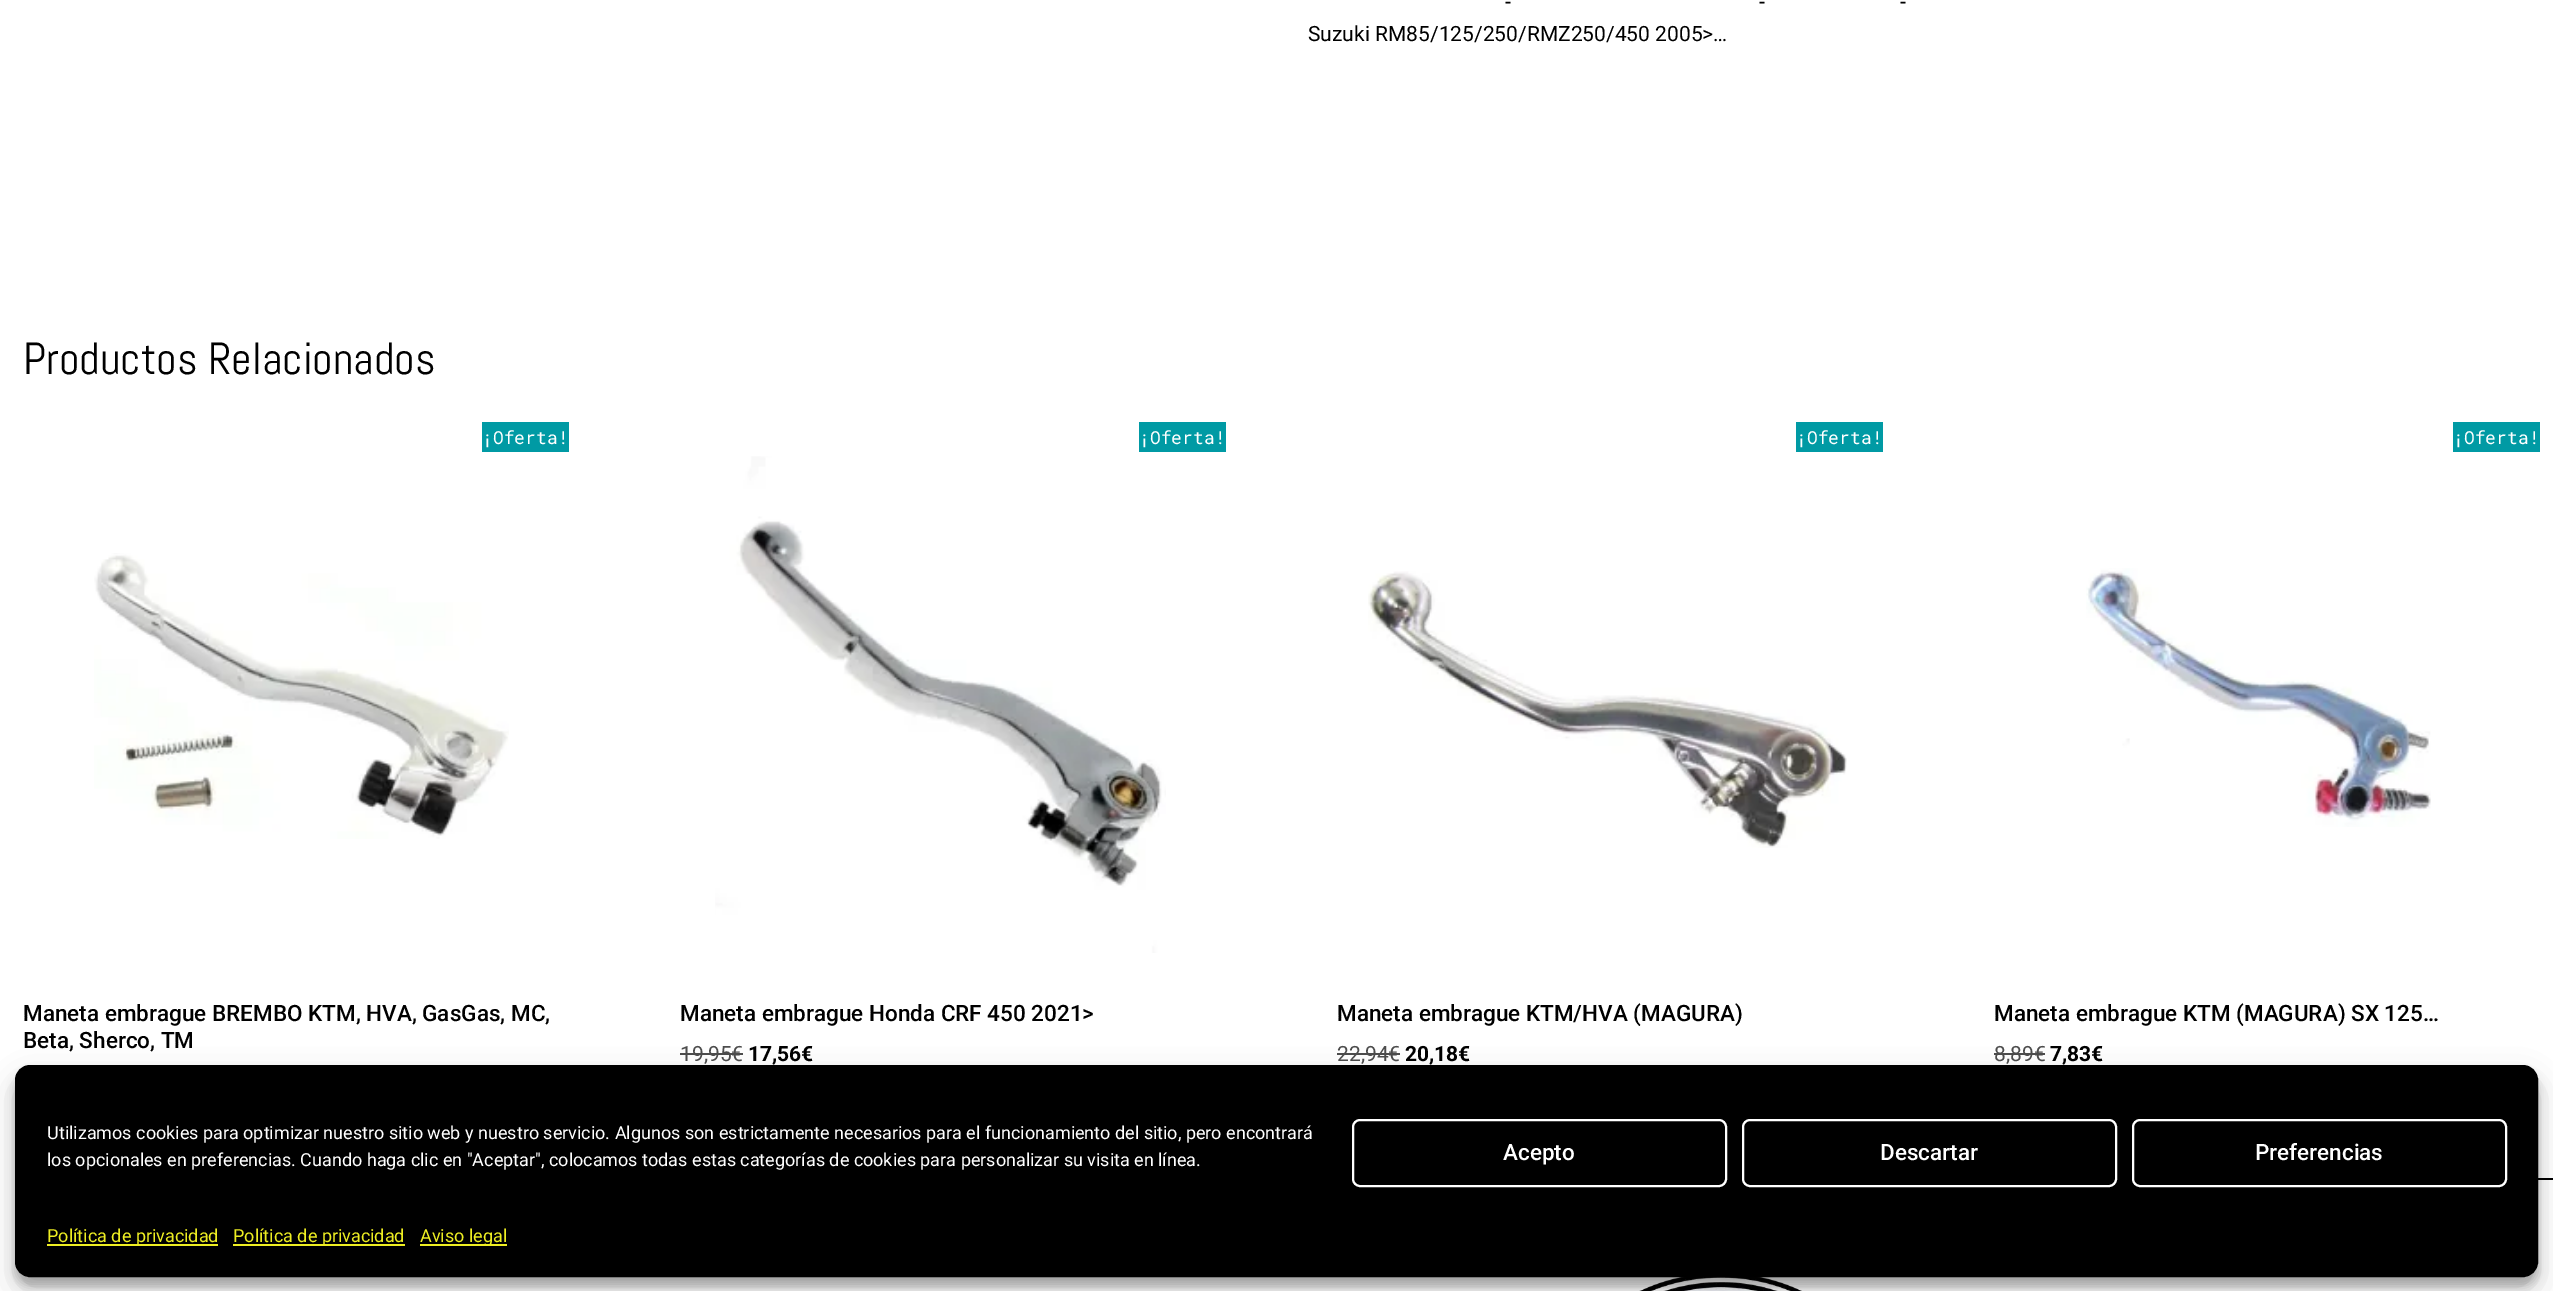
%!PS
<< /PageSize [2553 1291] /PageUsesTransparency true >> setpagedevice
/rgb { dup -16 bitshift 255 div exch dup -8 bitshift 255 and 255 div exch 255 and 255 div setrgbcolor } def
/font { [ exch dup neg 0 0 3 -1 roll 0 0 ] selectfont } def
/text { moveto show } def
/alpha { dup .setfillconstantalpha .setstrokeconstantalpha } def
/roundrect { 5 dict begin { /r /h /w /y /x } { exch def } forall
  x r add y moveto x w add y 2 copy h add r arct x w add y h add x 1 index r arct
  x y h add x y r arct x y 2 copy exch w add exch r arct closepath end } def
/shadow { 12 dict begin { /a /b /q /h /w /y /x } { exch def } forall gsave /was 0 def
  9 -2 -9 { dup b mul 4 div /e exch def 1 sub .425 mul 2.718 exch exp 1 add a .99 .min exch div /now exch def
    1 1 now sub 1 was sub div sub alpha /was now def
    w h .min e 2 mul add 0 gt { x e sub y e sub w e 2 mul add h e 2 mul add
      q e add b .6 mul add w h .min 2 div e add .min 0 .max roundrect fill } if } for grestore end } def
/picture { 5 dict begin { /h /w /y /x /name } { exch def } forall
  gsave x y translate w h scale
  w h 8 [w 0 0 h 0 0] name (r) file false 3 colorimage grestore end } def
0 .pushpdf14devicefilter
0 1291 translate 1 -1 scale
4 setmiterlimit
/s1 { /Roboto-Regular 21 font 16#000000 rgb } def
/s2 { /Abel-Regular 45 font 16#000000 rgb } def
/s3 { /RobotoMono-Regular 18 font 16#FFFFFF rgb } def
/s4 { /Roboto-Medium 22.5 font 16#000000 rgb } def
/s5 { /Roboto-Regular 21 font 16#4D4D4D rgb } def
/s6 { /Roboto-Bold 21 font 16#000000 rgb } def
/s7 { /Roboto-Regular 18 font 16#FFFFFF rgb } def
/s8 { /Roboto-Medium 22.5 font 16#FFFFFF rgb } def
/s9 { /Roboto-Regular 18 font 16#EEEE22 rgb } def
16#FFFFFF rgb
0 0 2553 1291 rectfill
s1
(-) 1505 9 text
(-) 1759 9 text
(-) 1900 9 text
(Suzuki RM85/125/250/RMZ250/450 2005>…) 1308 41 text
s2
(Productos Relacionados) 23 374 text
16#009AA4 rgb
482 422 87 30 rectfill
s3
(¡Oferta!) 482 444 text
(pic1.raw) 94 553 415 286 picture
s4
(Maneta embrague BREMBO KTM, HVA, GasGas, MC,) 23 1021 text
(Beta, Sherco, TM) 23 1048 text
16#009AA4 rgb
1139 422 87 30 rectfill
s3
(¡Oferta!) 1139 444 text
(pic2.raw) 715 456 451 497 picture
s4
(Maneta embrague Honda CRF 450 2021>) 680 1021 text
s5
(19,95€) 680 1061 text
680 1053 63 2 rectfill
s6
(17,56€) 748 1061 text
16#009AA4 rgb
1796 422 87 30 rectfill
s3
(¡Oferta!) 1796 444 text
(pic3.raw) 1368 571 479 277 picture
s4
(Maneta embrague KTM/HVA \(MAGURA\)) 1337 1021 text
s5
(22,94€) 1337 1061 text
1337 1053 63 2 rectfill
s6
(20,18€) 1405 1061 text
16#009AA4 rgb
2453 422 87 30 rectfill
s3
(¡Oferta!) 2453 444 text
(pic4.raw) 2086 568 345 259 picture
s4
(Maneta embrague KTM \(MAGURA\) SX 125…) 1994 1021 text
s5
(8,89€) 1994 1061 text
1994 1053 51 2 rectfill
s6
(7,83€) 2050 1061 text
2538 1178 15 2 rectfill
(pic5.raw) 1639 1277 163 14 picture
15 1074 2523 212 15 4.5 0.23 shadow
15 1080 2523 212 15 15 0.19 shadow
16 1066 2521 210 14 roundrect gsave fill grestore
2 setlinewidth
stroke
s7
(Utilizamos cookies para optimizar nuestro sitio web y nuestro servicio. Algunos son estrictamente necesarios para el funcionamiento del sitio, pero encontrará) 47 1139 text
(los opcionales en preferencias. Cuando haga clic en "Aceptar", colocamos todas estas categorías de cookies para personalizar su visita en línea.) 47 1166 text
1353 1120 373 66 7 roundrect stroke
s8
(Acepto) 1503 1160 text
1743 1120 373 66 7 roundrect stroke
(Descartar) 1880 1160 text
2133 1120 373 66 7 roundrect stroke
(Preferencias) 2255 1160 text
16#EEEE22 rgb
47 1244 171 2 rectfill
s9
(Política de privacidad) 47 1242 text
233 1244 172 2 rectfill
(Política de privacidad) 233 1242 text
420 1244 87 2 rectfill
(Aviso legal) 420 1242 text
.poppdf14devicefilter showpage
